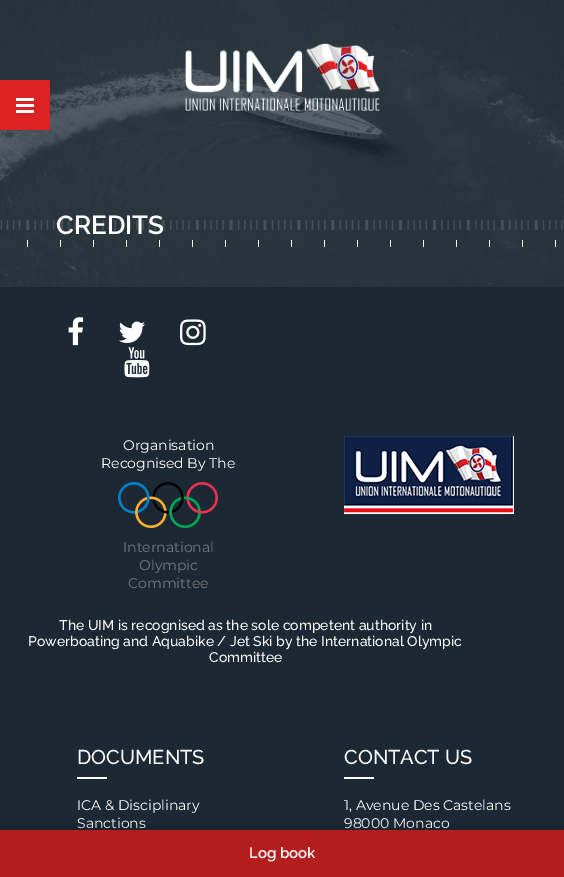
%!PS
<< /PageSize [564 877] /PageUsesTransparency true >> setpagedevice
/rgb { dup -16 bitshift 255 div exch dup -8 bitshift 255 and 255 div exch 255 and 255 div setrgbcolor } def
/font { [ exch dup neg 0 0 3 -1 roll 0 0 ] selectfont } def
/text { moveto show } def
/alpha { dup .setfillconstantalpha .setstrokeconstantalpha } def
/roundrect { 5 dict begin { /r /h /w /y /x } { exch def } forall
  x r add y moveto x w add y 2 copy h add r arct x w add y h add x 1 index r arct
  x y h add x y r arct x y 2 copy exch w add exch r arct closepath end } def
/shadow { 12 dict begin { /a /b /q /h /w /y /x } { exch def } forall gsave /was 0 def
  9 -2 -9 { dup b mul 4 div /e exch def 1 sub .425 mul 2.718 exch exp 1 add a .99 .min exch div /now exch def
    1 1 now sub 1 was sub div sub alpha /was now def
    w h .min e 2 mul add 0 gt { x e sub y e sub w e 2 mul add h e 2 mul add
      q e add b .6 mul add w h .min 2 div e add .min 0 .max roundrect fill } if } for grestore end } def
/picture { 5 dict begin { /h /w /y /x /name } { exch def } forall
  gsave x y translate w h scale
  w h 8 [w 0 0 h 0 0] name (r) file false 3 colorimage grestore end } def
0 .pushpdf14devicefilter
0 877 translate 1 -1 scale
4 setmiterlimit
/s1 { /Raleway-SemiBold 26 font 16#FFFFFF rgb } def
/s2 { /Montserrat-Regular 14 font 16#FFFFFF rgb } def
/s3 { /Montserrat-Regular 14 font 16#77787B rgb } def
/s4 { /Raleway-Medium 14 font 16#FFFFFF rgb } def
/s5 { /Raleway-Medium 20 font 16#FFFFFF rgb } def
/s6 { /Raleway-SemiBold 15 font 16#FFFFFF rgb } def
16#FFFFFF rgb
0 0 564 877 rectfill
(pic1.raw) 0 0 564 287 picture
16#DC2222 rgb
0 80 50 50 rectfill
16#FFFFFF rgb
16 98 18 3 rectfill
16 104 18 3 rectfill
16 110 18 3 rectfill
(pic2.raw) 184 43 197 68 picture
(pic3.raw) 0 220 563 27 picture
s1
(CREDITS) 56 234 text
16#1C2834 rgb
0 287 564 543 rectfill
(pic4.raw) 68 317 16 29 picture
(pic5.raw) 119 321 26 22 picture
(pic6.raw) 180 319 26 27 picture
(pic7.raw) 124 347 26 31 picture
s2
(Organisation) 123 450 text
(Recognised By The) 101 468 text
(pic8.raw) 118 482 100 46 picture
s3
(International) 123 552 text
(Olympic) 139 570 text
(Committee) 128 588 text
(pic9.raw) 344 436 170 78 picture
s4
(The UIM is recognised as the sole competent authority in) 59 630 text
(Powerboating and Aquabike / Jet Ski by the International Olympic) 28 646 text
(Committee) 209 662 text
s5
(DOCUMENTS) 77 764 text
77 777 30 2 rectfill
s2
(ICA & Disciplinary) 77 810 text
(Sanctions) 77 828 text
s5
(CONTACT US) 344 764 text
344 777 30 2 rectfill
s2
(1, Avenue Des Castelans) 344 810 text
(98000 Monaco) 344 828 text
16#000000 rgb
-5 825 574 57 0 2.5 0.13 shadow
16#B31D1D rgb
0 830 564 47 rectfill
s6
(Log book) 249 858 text
.poppdf14devicefilter showpage
